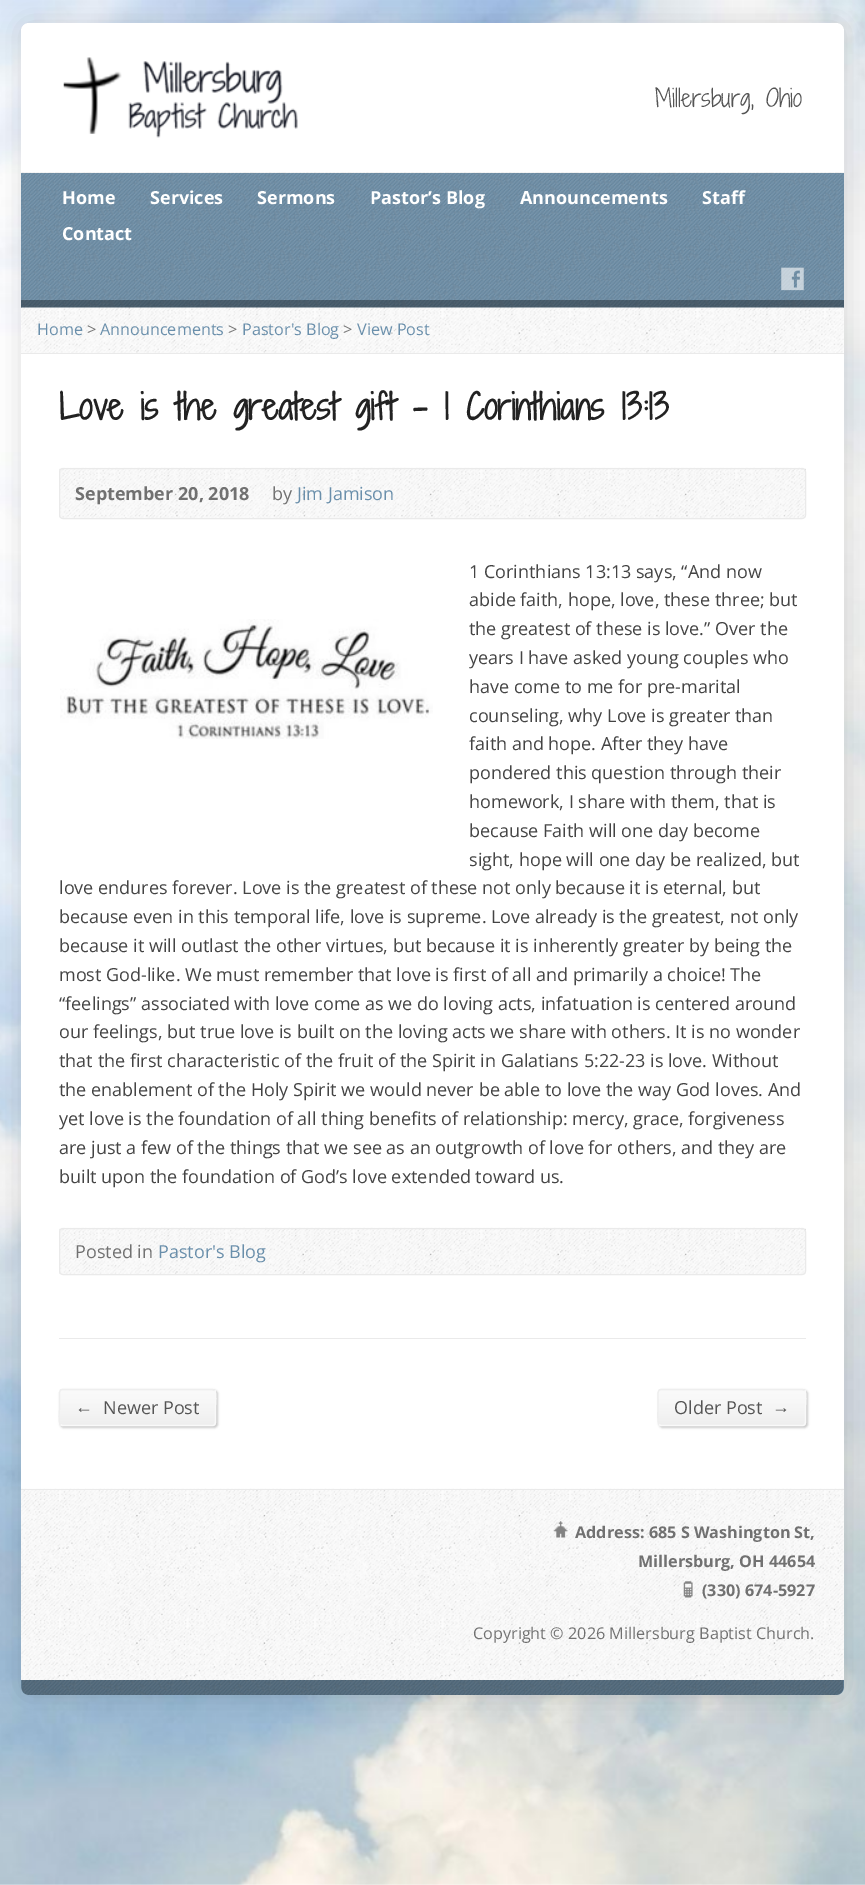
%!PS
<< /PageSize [865 1885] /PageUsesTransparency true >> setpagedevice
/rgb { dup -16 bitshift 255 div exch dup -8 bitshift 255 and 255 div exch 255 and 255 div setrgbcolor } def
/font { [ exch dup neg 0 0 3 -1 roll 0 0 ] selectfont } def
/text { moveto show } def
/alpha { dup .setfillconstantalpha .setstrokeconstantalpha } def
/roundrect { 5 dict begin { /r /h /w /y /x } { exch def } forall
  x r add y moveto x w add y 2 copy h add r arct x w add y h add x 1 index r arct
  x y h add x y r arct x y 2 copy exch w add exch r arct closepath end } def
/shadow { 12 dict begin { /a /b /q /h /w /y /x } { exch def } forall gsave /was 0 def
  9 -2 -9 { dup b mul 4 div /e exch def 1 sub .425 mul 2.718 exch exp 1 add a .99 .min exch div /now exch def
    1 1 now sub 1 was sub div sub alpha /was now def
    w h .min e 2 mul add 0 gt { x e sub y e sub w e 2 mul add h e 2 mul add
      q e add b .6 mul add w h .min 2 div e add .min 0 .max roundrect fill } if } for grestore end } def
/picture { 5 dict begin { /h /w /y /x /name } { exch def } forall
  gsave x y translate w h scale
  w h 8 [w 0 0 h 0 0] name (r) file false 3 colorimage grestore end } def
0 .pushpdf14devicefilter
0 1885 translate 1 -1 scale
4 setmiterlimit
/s1 { /ShadowsIntoLightTwo-Light 23.5 font 16#555555 rgb } def
/s2 { /OpenSans-Bold 18 font 16#FFFFFF rgb } def
/s3 { /OpenSans-Regular 16.2 font 16#6A8FAB rgb } def
/s4 { /OpenSans-Regular 16.2 font 16#777777 rgb } def
/s5 { /ShadowsIntoLightTwo-Bold 34.25 font 16#222222 rgb } def
/s6 { /OpenSans-Bold 18 font 16#717171 rgb } def
/s7 { /OpenSans-Regular 18 font 16#717171 rgb } def
/s8 { /OpenSans-Regular 18 font 16#6A8FAB rgb } def
/s9 { /OpenSans-Regular 18 font 16#444444 rgb } def
/s10 { /LiberationSans-Regular 18 font 16#555555 rgb } def
/s11 { /OpenSans-Regular 18 font 16#555555 rgb } def
/s12 { /OpenSans-Bold 16.2 font 16#717171 rgb } def
/s13 { /OpenSans-Regular 16.2 font 16#717171 rgb } def
16#FFFFFF rgb
0 0 865 1885 rectfill
(pic1.raw) 0 0 865 1885 picture
16#000000 rgb
21 23 823 1672 8 12.5 0.12 shadow
16#FFFFFF rgb
21 23 823 1672 8 roundrect fill
(pic2.raw) 63 57 235 81 picture
s1
(Millersburg, Ohio) 655 107 text
16#6A8FAB rgb
21 173 823 135 rectfill
(pic3.raw) 21 172 823 136 picture
s2
(Home) 62 204 text
(Services) 150 204 text
(Sermons) 257 204 text
(Pastor’s Blog) 370 204 text
(Announcements) 520 204 text
(Staff) 702 204 text
(Contact) 62 240 text
(pic4.raw) 781 267 23 24 picture
0.35 alpha
16#000000 rgb
21 300 823 8 rectfill
1 alpha
(pic5.raw) 21 307 823 46 picture
16#EAEAEA rgb
21 353 823 1 rectfill
s3
(Home) 37 335 text
s4
(>) 87 335 text
s3
(Announcements) 100 335 text
s4
(>) 228 335 text
s3
(Pastor's Blog) 242 335 text
s4
(>) 343 335 text
s3
(View Post) 357 335 text
s5
(Love is the greatest gift – 1 Corinthians 13:13) 59 420 text
(pic6.raw) 59 467 747 52 picture
16#EAEAEA rgb
59.5 468.5 746 50 3.5 roundrect stroke
s6
(September 20, 2018) 75 500 text
s7
(by) 272 500 text
s8
(Jim Jamison) 297 500 text
s9
(1 Corinthians 13:13 says, “And now) 469 578 text
(abide faith, hope, love, these three; but) 469 606 text
(pic7.raw) 60 619 373 120 picture
(the greatest of these is love.” Over the) 469 635 text
(years I have asked young couples who) 469 664 text
(have come to me for pre-marital) 469 693 text
(counseling, why Love is greater than) 469 722 text
(faith and hope. After they have) 469 750 text
(pondered this question through their) 469 779 text
(homework, I share with them, that is) 469 808 text
(because Faith will one day become) 469 837 text
(sight, hope will one day be realized, but) 469 866 text
(love endures forever. Love is the greatest of these not only because it is eternal, but) 59 894 text
(because even in this temporal life, love is supreme. Love already is the greatest, not only) 59 923 text
(because it will outlast the other virtues, but because it is inherently greater by being the) 59 952 text
(most God-like. We must remember that love is first of all and primarily a choice! The) 59 981 text
(“feelings” associated with love come as we do loving acts, infatuation is centered around) 59 1010 text
(our feelings, but true love is built on the loving acts we share with others. It is no wonder) 59 1038 text
(that the first characteristic of the fruit of the Spirit in Galatians 5:22-23 is love. Without) 59 1067 text
(the enablement of the Holy Spirit we would never be able to love the way God loves. And) 59 1096 text
(yet love is the foundation of all thing benefits of relationship: mercy, grace, forgiveness) 59 1125 text
(are just a few of the things that we see as an outgrowth of love for others, and they are) 59 1154 text
(built upon the foundation of God’s love extended toward us.) 59 1183 text
(pic8.raw) 59 1227 747 48 picture
16#EAEAEA rgb
59.5 1228.5 746 46 3.5 roundrect stroke
s7
(Posted in) 75 1258 text
s8
(Pastor's Blog) 158 1258 text
16#EAEAEA rgb
59 1338 747 1 rectfill
16#000000 rgb
60 1390 158 38 4 1 0.2 shadow
16#F9F9F9 rgb
59 1389 157 37 4 roundrect fill
(pic9.raw) 59 1389 157 37 picture
1.2 setlinewidth
214.5 1390.5 moveto 217 1392.5 215.5 1404.5 215.5 1407.5 curveto 215.5 1417.5 lineto 215.5 1420 216.5 1425.5 212.5 1425.5 curveto 62.5 1425.5 lineto 60.5 1424.5 lineto stroke
16#EEEEEE rgb
60.5 1424.5 moveto 58 1422.5 59.5 1410.5 59.5 1407.5 curveto 59.5 1397.5 lineto 59.5 1395 58.5 1389.5 62.5 1389.5 curveto 212.5 1389.5 lineto 214.5 1390.5 lineto stroke
s10
(←) 75 1413 text
s11
(Newer Post) 103 1414 text
16#000000 rgb
659 1390 149 38 4 1 0.2 shadow
16#F9F9F9 rgb
658 1389 148 37 4 roundrect fill
(pic10.raw) 658 1389 148 37 picture
804.5 1390.5 moveto 807 1392.5 805.5 1404.5 805.5 1407.5 curveto 805.5 1417.5 lineto 805.5 1420 806.5 1425.5 802.5 1425.5 curveto 661 1425.5 lineto 659 1424.5 lineto stroke
16#EEEEEE rgb
659 1424.5 moveto 657 1422.5 658 1410.5 658 1407.5 curveto 658 1397.5 lineto 658 1395 657 1389.5 661 1389.5 curveto 802.5 1389.5 lineto 804.5 1390.5 lineto stroke
s11
(Older Post) 674 1414 text
s10
(→) 772 1413 text
(pic11.raw) 21 1488 823 192 picture
16#EAEAEA rgb
21 1489 823 1 rectfill
(pic12.raw) 553 1521 15 17 picture
s12
(Address: 685 S Washington St,) 575 1538 text
(Millersburg, OH 44654) 638 1567 text
(pic13.raw) 683 1581 10 17 picture
(\(330\) 674-5927) 702 1596 text
s13
(Copyright © 2026 Millersburg Baptist Church.) 473 1639 text
16#6A8FAB rgb
21 1680 moveto 844 1680 lineto 844 1687.5 lineto 844 1691.5 840.5 1695 836.5 1695 curveto 28.5 1695 lineto 24.5 1695 21 1691.5 21 1687.5 curveto closepath fill
(pic14.raw) 21 1680 823 15 picture
.poppdf14devicefilter showpage
